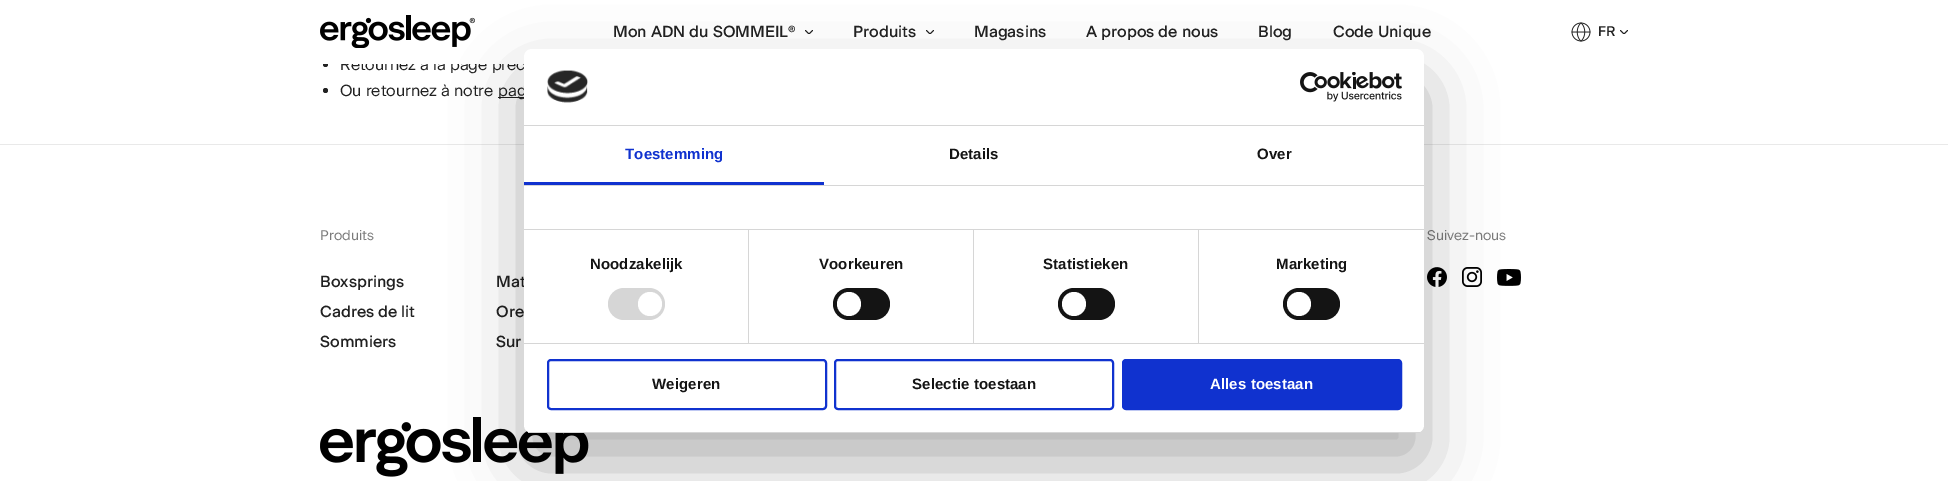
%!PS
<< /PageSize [1948 481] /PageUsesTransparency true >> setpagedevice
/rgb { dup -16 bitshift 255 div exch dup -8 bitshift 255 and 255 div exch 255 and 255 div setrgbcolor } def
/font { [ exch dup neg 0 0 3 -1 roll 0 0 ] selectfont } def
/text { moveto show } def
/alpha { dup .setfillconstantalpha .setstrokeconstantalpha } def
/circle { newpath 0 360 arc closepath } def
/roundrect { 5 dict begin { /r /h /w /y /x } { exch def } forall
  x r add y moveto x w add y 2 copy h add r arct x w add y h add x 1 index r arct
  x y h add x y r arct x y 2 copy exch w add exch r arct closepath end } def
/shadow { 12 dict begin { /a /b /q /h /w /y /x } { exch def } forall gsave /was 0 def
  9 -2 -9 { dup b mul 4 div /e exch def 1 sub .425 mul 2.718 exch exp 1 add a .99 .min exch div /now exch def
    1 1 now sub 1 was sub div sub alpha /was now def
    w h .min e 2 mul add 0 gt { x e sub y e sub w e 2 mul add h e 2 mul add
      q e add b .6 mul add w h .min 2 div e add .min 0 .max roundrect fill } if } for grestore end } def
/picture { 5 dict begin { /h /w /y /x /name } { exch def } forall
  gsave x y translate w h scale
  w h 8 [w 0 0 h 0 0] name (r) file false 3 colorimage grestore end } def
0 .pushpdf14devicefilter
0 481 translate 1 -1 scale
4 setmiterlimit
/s1 { /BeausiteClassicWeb-Regular 16 font 16#212121 rgb } def
/s2 { /BeausiteClassicWeb-Medium 16 font 16#212121 rgb } def
/s3 { /BeausiteClassicWeb-Medium 14 font 16#212121 rgb } def
/s4 { /BeausiteClassicWeb-Regular 14 font 16#7B7B7B rgb } def
16#FFFFFF rgb
0 0 1948 481 rectfill
16#212121 rgb
325.5 64.5 2.5 circle fill
s1
(Retournez à la page préc) 340 70 text
16#FFFFFF rgb
323 58 202 6 rectfill
(pic1.raw) 320 15 155 33 picture
s2
(Mon ADN du SOMMEIL®) 613 37 text
gsave
805 30 8 4 rectclip
813 30 moveto 809 34 lineto 805 30 lineto stroke
grestore
(Produits) 853 37 text
gsave
926 30 8 4 rectclip
934 30 moveto 930 34 lineto 926 30 lineto stroke
grestore
(Magasins) 974 37 text
(A propos de nous) 1086 37 text
(Blog) 1258 37 text
(Code Unique) 1333 37 text
(pic2.raw) 1571 22 20 20 picture
s3
(FR) 1598 36 text
gsave
1620 30 8 4 rectclip
1628 30 moveto 1624 34 lineto 1620 30 lineto stroke
grestore
325.5 90.5 2.5 circle fill
s1
(Ou retournez à notre) 340 96 text
498 97 26 1 rectfill
(pag) 498 96 text
16#E9E9E9 rgb
0 144 1948 1 rectfill
s4
(Produits) 320 240 text
s2
(Boxsprings) 320 287 text
(Mat) 496 287 text
(Cadres de lit) 320 317 text
(Ore) 496 317 text
(Sommiers) 320 347 text
(Sur) 496 347 text
s4
(Suivez-nous) 1427 240 text
(pic3.raw) 1427 267 20 20 picture
(pic4.raw) 1462 267 20 20 picture
(pic5.raw) 1497 269 24 17 picture
(pic6.raw) 320 417 269 60 picture
16#000000 rgb
524 81 900 384 8 34 0.3 shadow
16#FFFFFF rgb
524 49 900 384 8 roundrect fill
16#D6D6D6 rgb
524 125 900 1 rectfill
(pic7.raw) 547 70 41 33 picture
(pic8.raw) 1300 72 102 30 picture
524 185 900 1 rectfill
16#1032CF rgb
524 182 300 3 rectfill
/LiberationSans-Bold 15 font
625 159 moveto 0.1 0 (Toestemming) ashow
16#141414 rgb
949 159 moveto 0.1 0 (Details) ashow
1257 159 moveto 0.1 0 (Over) ashow
16#D6D6D6 rgb
524 229 900 1 rectfill
524 343 900 1 rectfill
748 230 1 113 rectfill
16#141414 rgb
590 269 moveto 0.1 0 (Noodzakelijk) ashow
16#D6D6D6 rgb
608 288 57 32 16 roundrect fill
16#FFFFFF rgb
650 304 12 circle fill
16#D6D6D6 rgb
973 230 1 113 rectfill
16#141414 rgb
819 269 moveto 0.1 0 (Voorkeuren) ashow
833 288 57 32 16 roundrect fill
16#FFFFFF rgb
849 304 12 circle fill
16#D6D6D6 rgb
1198 230 1 113 rectfill
16#141414 rgb
1043 269 moveto 0.1 0 (Statistieken) ashow
1058 288 57 32 16 roundrect fill
16#FFFFFF rgb
1074 304 12 circle fill
16#141414 rgb
1276 269 moveto 0.1 0 (Marketing) ashow
1283 288 57 32 16 roundrect fill
16#FFFFFF rgb
1299 304 12 circle fill
gsave
524 49 900 384 8 roundrect clip newpath
16#D6D6D6 rgb
524 432 900 1 rectfill
grestore
16#1032CF rgb
2 setlinewidth
548 360 278 49 3 roundrect stroke
16#141414 rgb
652 389 moveto 0.1 0 (Weigeren) ashow
16#1032CF rgb
835 360 278 49 3 roundrect stroke
16#141414 rgb
912 389 moveto 0.1 0 (Selectie toestaan) ashow
16#1032CF rgb
1123 360 278 49 3 roundrect gsave fill grestore
stroke
16#FFFFFF rgb
1210 389 moveto 0.1 0 (Alles toestaan) ashow
.poppdf14devicefilter showpage
